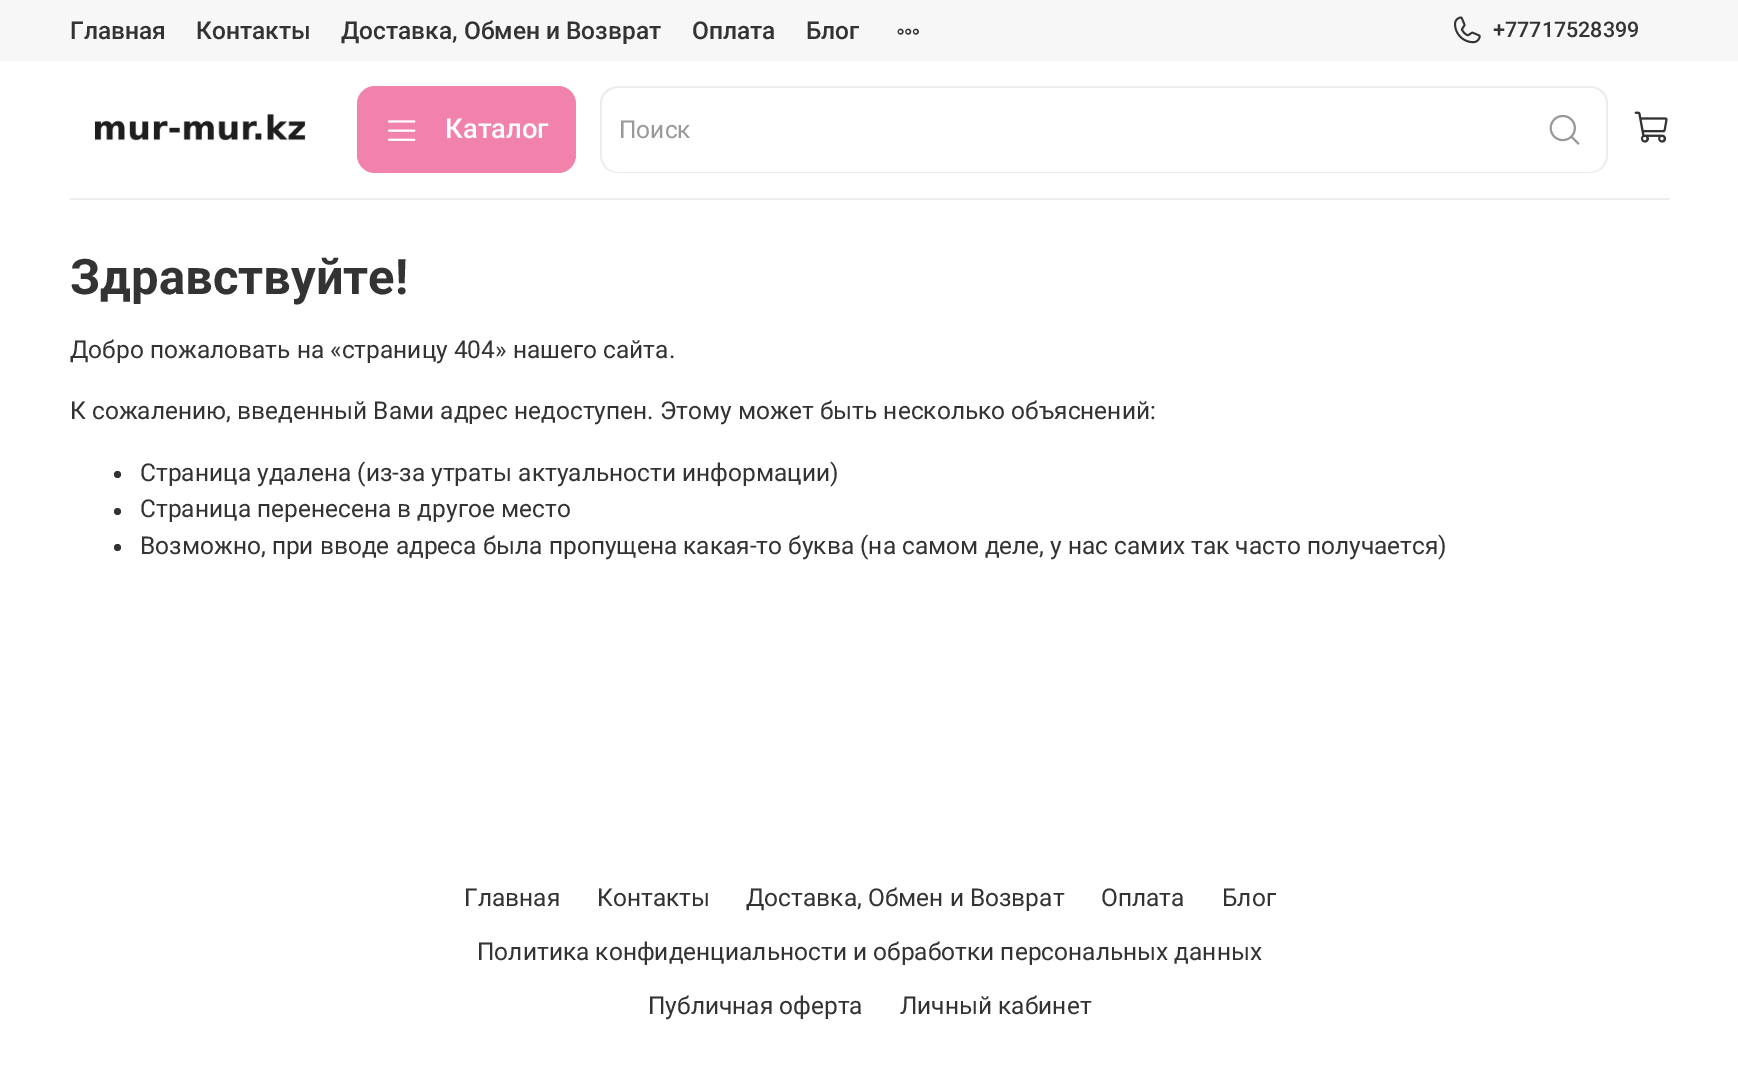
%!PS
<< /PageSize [1738 1067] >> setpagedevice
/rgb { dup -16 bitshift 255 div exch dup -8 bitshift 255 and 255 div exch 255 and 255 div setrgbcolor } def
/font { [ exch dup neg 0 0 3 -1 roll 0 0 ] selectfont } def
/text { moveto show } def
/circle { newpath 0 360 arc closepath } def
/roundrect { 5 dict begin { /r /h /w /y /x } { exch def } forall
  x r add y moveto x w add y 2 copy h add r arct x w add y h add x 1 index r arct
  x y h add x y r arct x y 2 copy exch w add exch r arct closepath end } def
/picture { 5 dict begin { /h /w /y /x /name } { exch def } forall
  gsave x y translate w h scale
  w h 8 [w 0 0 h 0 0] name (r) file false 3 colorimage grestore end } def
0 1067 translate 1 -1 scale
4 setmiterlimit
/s1 { /Roboto-Medium 24.5 font 16#333333 rgb } def
/s2 { /Roboto-Medium 21.5 font 16#333333 rgb } def
/s3 { /Roboto-Medium 27.5 font 16#FFFFFF rgb } def
/s4 { /Roboto-Regular 24.5 font 16#999999 rgb } def
/s5 { /Roboto-Bold 49 font 16#333333 rgb } def
/s6 { /Roboto-Regular 24.5 font 16#333333 rgb } def
16#FFFFFF rgb
0 0 1738 1067 rectfill
16#F7F7F7 rgb
0 0 1738 61 rectfill
s1
(Главная) 70 39 text
(Контакты) 196 39 text
(Доставка, Обмен и Возврат) 341 39 text
(Оплата) 692 39 text
(Блог) 806 39 text
(pic1.raw) 897 28 22 7 picture
(pic2.raw) 1454 16 27 28 picture
s2
(+77717528399) 1493 37 text
16#EDEDED rgb
70 198 1600 2 rectfill
(pic3.raw) 94 114 212 27 picture
16#F082AC rgb
357 86 219 87 18 roundrect fill
(pic4.raw) 387 120 29 21 picture
s3
(Каталог) 445 138 text
16#EDEDED rgb
618 86 moveto 1521 86 lineto 1521 173 lineto 618 173 lineto 608 173 600 165 600 156 curveto 600 103 lineto 600 94 608 86 618 86 curveto closepath 618 88 moveto 1521 88 lineto 1521 172 lineto 618 172 lineto 609 172 602 164 602 156 curveto 602 103 lineto 602 95 609 88 618 88 curveto closepath eofill
s4
(Поиск) 619 138 text
16#EDEDED rgb
1521 86 moveto 1591 86 lineto 1600 86 1608 94 1608 103 curveto 1608 156 lineto 1608 165 1600 173 1591 173 curveto 1521 173 lineto closepath 1521 88 moveto 1591 88 lineto 1599 88 1606 95 1606 103 curveto 1606 156 lineto 1606 164 1599 172 1591 172 curveto 1521 172 lineto closepath eofill
(pic5.raw) 1549 114 31 31 picture
(pic6.raw) 1634 111 34 32 picture
s5
(Здравствуйте!) 70 294 text
s6
(Добро пожаловать на «страницу 404» нашего сайта.) 70 358 text
(К сожалению, введенный Вами адрес недоступен. Этому может быть несколько объяснений:) 70 419 text
117.5 474.5 3.5 circle fill
(Страница удалена \(из-за утраты актуальности информации\)) 140 481 text
117.5 511.5 3.5 circle fill
(Страница перенесена в другое место) 140 517 text
117.5 547.5 3.5 circle fill
(Возможно, при вводе адреса была пропущена какая-то буква \(на самом деле, у нас самих так часто получается\)) 140 554 text
(Главная) 464 906 text
(Контакты) 597 906 text
(Доставка, Обмен и Возврат) 746 906 text
(Оплата) 1101 906 text
(Блог) 1222 906 text
(Политика конфиденциальности и обработки персональных данных) 477 960 text
(Публичная оферта) 648 1014 text
(Личный кабинет) 900 1014 text
showpage
